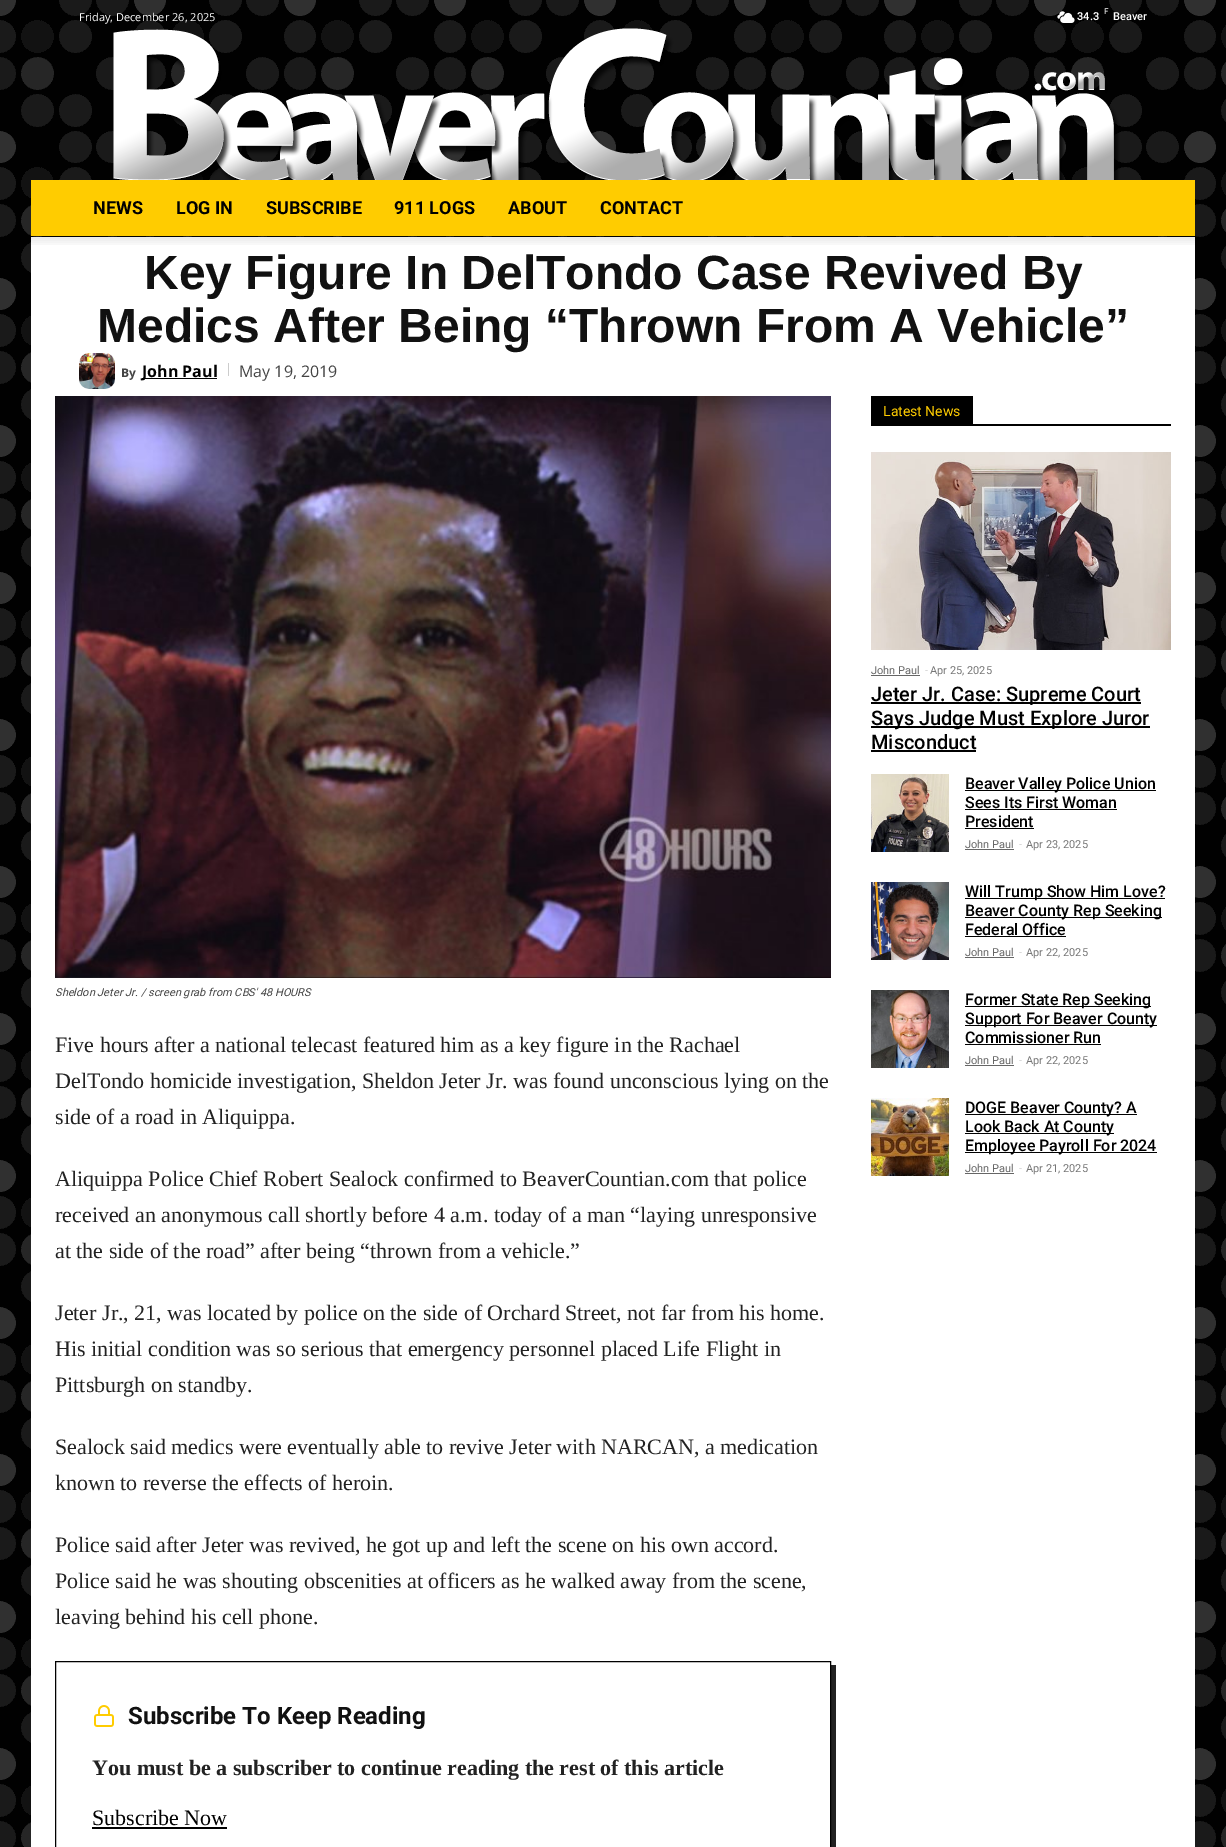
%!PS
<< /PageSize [1226 1847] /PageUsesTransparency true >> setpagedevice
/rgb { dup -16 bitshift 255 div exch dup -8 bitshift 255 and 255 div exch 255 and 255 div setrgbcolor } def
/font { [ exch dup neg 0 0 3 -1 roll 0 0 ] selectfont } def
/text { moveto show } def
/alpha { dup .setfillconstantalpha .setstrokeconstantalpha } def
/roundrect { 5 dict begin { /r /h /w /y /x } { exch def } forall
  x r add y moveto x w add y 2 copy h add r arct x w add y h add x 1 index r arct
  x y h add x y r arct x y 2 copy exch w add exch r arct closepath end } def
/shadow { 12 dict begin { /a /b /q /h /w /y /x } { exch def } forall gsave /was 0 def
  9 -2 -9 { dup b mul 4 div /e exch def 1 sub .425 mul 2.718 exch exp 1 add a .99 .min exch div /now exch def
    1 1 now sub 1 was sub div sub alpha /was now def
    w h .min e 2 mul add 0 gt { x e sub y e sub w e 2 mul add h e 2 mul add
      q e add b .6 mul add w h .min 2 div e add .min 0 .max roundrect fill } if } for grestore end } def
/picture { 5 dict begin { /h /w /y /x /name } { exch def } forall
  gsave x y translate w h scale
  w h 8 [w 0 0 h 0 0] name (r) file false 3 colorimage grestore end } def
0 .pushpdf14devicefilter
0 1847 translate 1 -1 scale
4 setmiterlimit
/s1 { /OpenSans-Regular 11 font 16#FFFFFF rgb } def
/s2 { /Roboto-Regular 8 font 16#FFFFFF rgb } def
/s3 { /Roboto-SemiBold 11 font 16#FFFFFF rgb } def
/s4 { /Roboto-Medium 11 font 16#FFFFFF rgb } def
/s5 { /Roboto-Bold 18 font 16#000000 rgb } def
/s6 { /LiberationSans-Bold 48 font 16#111111 rgb } def
/s7 { /OpenSans-Bold 12 font 16#444444 rgb } def
/s8 { /OpenSans-Bold 16 font 16#000000 rgb } def
/s9 { /OpenSans-Regular 16 font 16#444444 rgb } def
/s10 { /Roboto-Regular 14 font 16#FFCC00 rgb } def
/s11 { /Roboto-Regular 11 font 16#666666 rgb } def
/s12 { /Roboto-Regular 11 font 16#CCCCCC rgb } def
/s13 { /Roboto-Regular 11 font 16#767676 rgb } def
/s14 { /Roboto-Medium 20 font 16#000000 rgb } def
/s15 { /Roboto-Medium 16 font 16#000000 rgb } def
/s16 { /Roboto-Italic 11 font 16#444444 rgb } def
/s17 { /LiberationSerif-Regular 22 font 16#222222 rgb } def
/s18 { /Roboto-Bold 24 font 16#111111 rgb } def
/s19 { /LiberationSerif-Bold 22 font 16#222222 rgb } def
/s20 { /LiberationSerif-Regular 22 font 16#000000 rgb } def
16#FFFFFF rgb
0 0 1226 1847 rectfill
(pic1.raw) 0 0 1226 1847 picture
s1
(Friday, December 26, 2025) 79 21 text
(pic2.raw) 1057 11 18 12 picture
s2
(F) 1104 14 text
s3
(34.3) 1077 20 text
s4
(Beaver) 1113 20 text
(pic3.raw) 113 28 1007 152 picture
16#FFCC00 rgb
31 180 1164 56 rectfill
16#FFFFFF rgb
31 237 1164 1610 rectfill
gsave
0 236 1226 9 rectclip
16#000000 rgb
0 186 1226 56 0 4 0.08 shadow
grestore
s5
(NEWS) 93 214 text
(LOG IN) 176 214 text
(SUBSCRIBE) 266 214 text
(911 LOGS) 394 214 text
(ABOUT) 508 214 text
(CONTACT) 600 214 text
s6
(Key Figure In DelTondo Case Revived By) 144 289 text
(Medics After Being “Thrown From A Vehicle”) 97 342 text
(pic4.raw) 79 353 36 36 picture
s7
(By) 121 377 text
16#000000 rgb
142 378 75 1 rectfill
s8
(John Paul) 142 377 text
16#CCCCCC rgb
228 363 1 13 rectfill
s9
(May 19, 2019) 239 377 text
16#000000 rgb
871 424 300 2 rectfill
871 396 102 28 rectfill
s10
(Latest News) 883 416 text
(pic5.raw) 871 452 300 198 picture
s11
(John Paul) 871 674 text
871 675 49 1 rectfill
s12
(-) 925 674 text
s13
(Apr 25, 2025) 930 674 text
16#000000 rgb
871 702 270 2 rectfill
s14
(Jeter Jr. Case: Supreme Court) 871 701 text
871 726 279 2 rectfill
(Says Judge Must Explore Juror) 871 725 text
(Misconduct) 871 749 text
871 750 105 2 rectfill
(pic6.raw) 871 774 78 78 picture
965 790 191 1 rectfill
s15
(Beaver Valley Police Union) 965 789 text
(Sees Its First Woman) 965 808 text
965 809 152 1 rectfill
(President) 965 827 text
965 828 69 1 rectfill
s11
(John Paul) 965 848 text
965 849 49 1 rectfill
s12
(-) 1019 848 text
s13
(Apr 23, 2025) 1026 848 text
(pic7.raw) 871 882 78 78 picture
16#000000 rgb
965 898 200 1 rectfill
s15
(Will Trump Show Him Love?) 965 897 text
965 917 197 1 rectfill
(Beaver County Rep Seeking) 965 916 text
(Federal Office) 965 935 text
965 936 101 1 rectfill
s11
(John Paul) 965 956 text
965 957 49 1 rectfill
s12
(-) 1019 956 text
s13
(Apr 22, 2025) 1026 956 text
(pic8.raw) 871 990 78 78 picture
16#000000 rgb
965 1006 186 1 rectfill
s15
(Former State Rep Seeking) 965 1005 text
965 1025 192 1 rectfill
(Support For Beaver County) 965 1024 text
(Commissioner Run) 965 1043 text
965 1044 136 1 rectfill
s11
(John Paul) 965 1064 text
965 1065 49 1 rectfill
s12
(-) 1019 1064 text
s13
(Apr 22, 2025) 1026 1064 text
(pic9.raw) 871 1098 78 78 picture
16#000000 rgb
965 1114 172 1 rectfill
s15
(DOGE Beaver County? A) 965 1113 text
965 1133 149 1 rectfill
(Look Back At County) 965 1132 text
965 1152 192 1 rectfill
(Employee Payroll For 2024) 965 1151 text
s11
(John Paul) 965 1172 text
965 1173 49 1 rectfill
s12
(-) 1019 1172 text
s13
(Apr 21, 2025) 1026 1172 text
(pic10.raw) 55 396 776 582 picture
s16
(Sheldon Jeter Jr. / screen grab from CBS' 48 HOURS) 55 996 text
s17
(Five hours after a national telecast featured him as a key figure in the Rachael) 55 1052 text
(DelTondo homicide investigation, Sheldon Jeter Jr. was found unconscious lying on the) 55 1088 text
(side of a road in Aliquippa.) 55 1124 text
(Aliquippa Police Chief Robert Sealock confirmed to BeaverCountian.com that police) 55 1186 text
(received an anonymous call shortly before 4 a.m. today of a man “laying unresponsive) 55 1222 text
(at the side of the road” after being “thrown from a vehicle.”) 55 1258 text
(Jeter Jr., 21, was located by police on the side of Orchard Street, not far from his home.) 55 1320 text
(His initial condition was so serious that emergency personnel placed Life Flight in) 55 1356 text
(Pittsburgh on standby.) 55 1392 text
(Sealock said medics were eventually able to revive Jeter with NARCAN, a medication) 55 1454 text
(known to reverse the effects of heroin.) 55 1490 text
(Police said after Jeter was revived, he got up and left the scene on his own accord.) 55 1552 text
(Police said he was shouting obscenities at officers as he walked away from the scene,) 55 1588 text
(leaving behind his cell phone.) 55 1624 text
60 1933 moveto 60 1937 lineto 836 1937 lineto 836 1665 lineto 831 1665 lineto 831 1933 lineto closepath fill
16#000000 rgb
55.5 1661.5 775 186 rectstroke
(pic11.raw) 94 1705 20 22 picture
s18
(Subscribe To Keep Reading) 128 1724 text
s19
(You must be a subscriber to continue reading the rest of this article) 92 1775 text
s20
(Subscribe Now) 92 1825 text
92 1827 135 2 rectfill
.poppdf14devicefilter showpage
